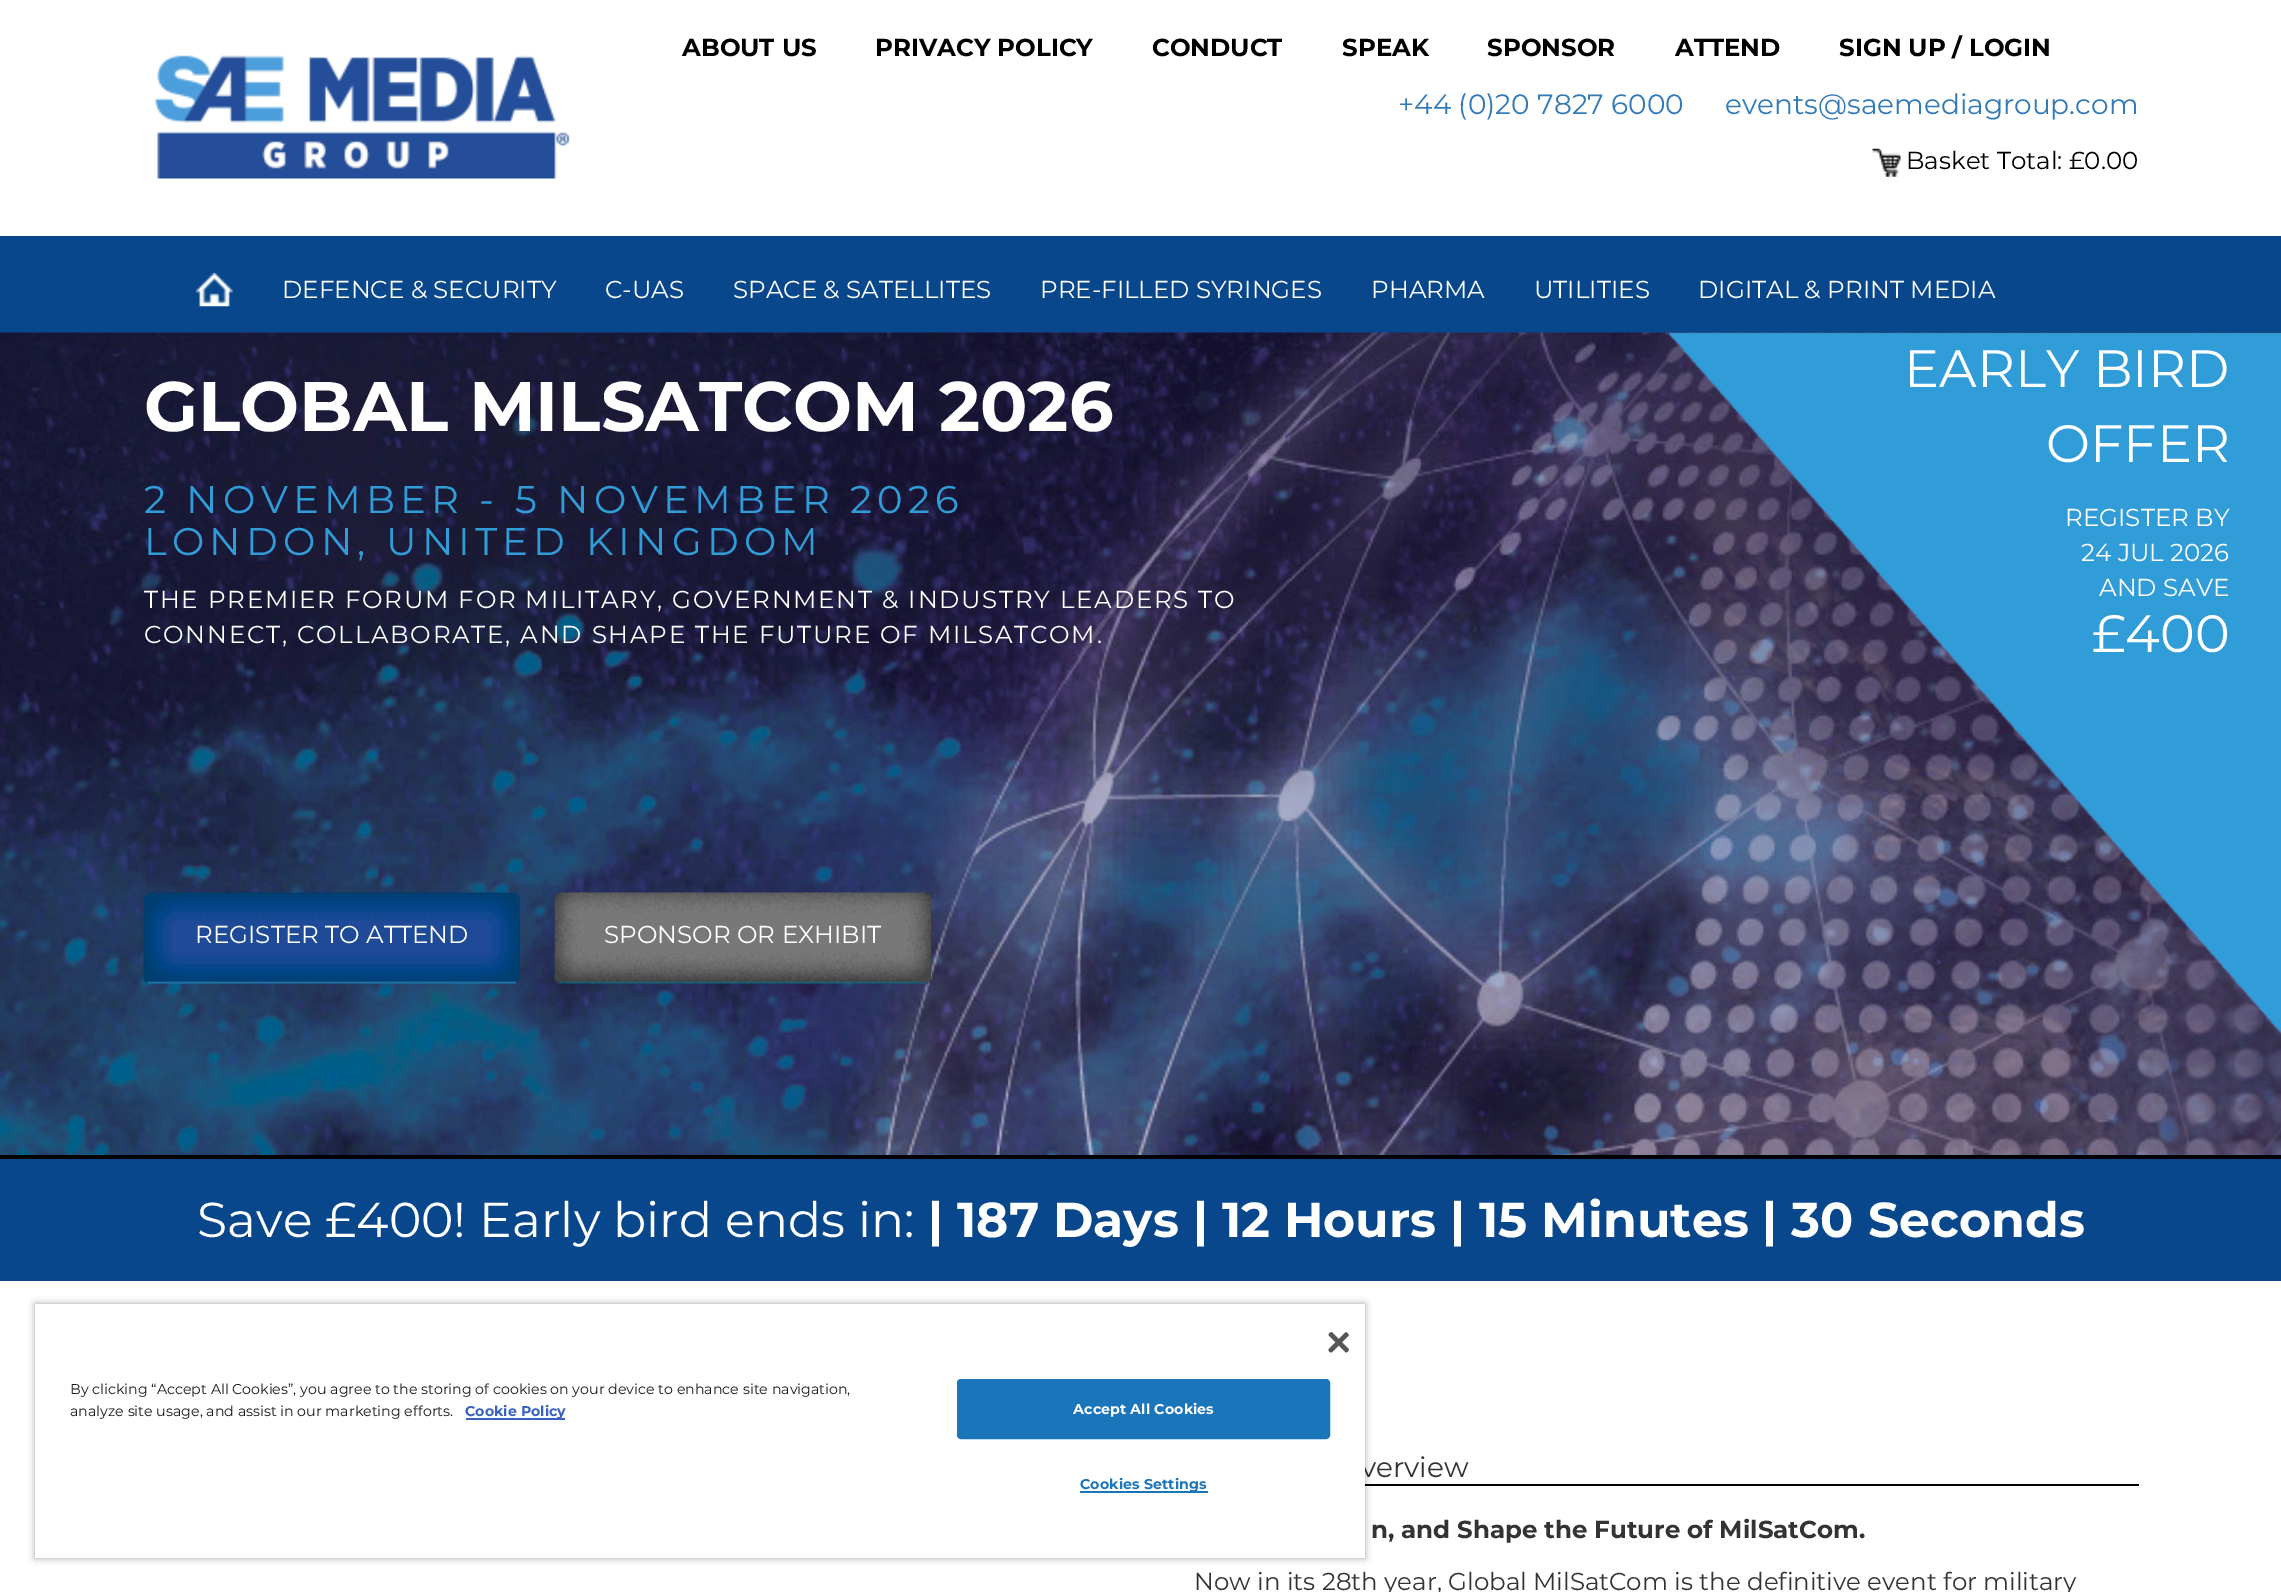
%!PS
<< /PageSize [2281 1592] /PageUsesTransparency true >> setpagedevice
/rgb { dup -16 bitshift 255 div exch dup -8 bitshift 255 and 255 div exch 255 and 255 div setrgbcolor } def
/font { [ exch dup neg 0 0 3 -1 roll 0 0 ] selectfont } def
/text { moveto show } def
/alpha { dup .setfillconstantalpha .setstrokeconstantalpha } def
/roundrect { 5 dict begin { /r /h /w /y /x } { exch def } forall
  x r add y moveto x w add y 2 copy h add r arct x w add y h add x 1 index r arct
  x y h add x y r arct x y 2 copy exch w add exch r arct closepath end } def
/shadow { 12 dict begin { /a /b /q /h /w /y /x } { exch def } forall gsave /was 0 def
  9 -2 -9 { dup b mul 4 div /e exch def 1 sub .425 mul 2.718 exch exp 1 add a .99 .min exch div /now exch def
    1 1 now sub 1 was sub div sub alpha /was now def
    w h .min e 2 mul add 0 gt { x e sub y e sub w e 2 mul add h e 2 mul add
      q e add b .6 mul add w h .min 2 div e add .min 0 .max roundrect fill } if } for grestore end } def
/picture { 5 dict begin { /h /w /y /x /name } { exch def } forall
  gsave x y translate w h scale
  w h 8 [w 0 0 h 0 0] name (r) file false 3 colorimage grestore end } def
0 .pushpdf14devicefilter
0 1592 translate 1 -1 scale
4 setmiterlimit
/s1 { /Montserrat-Bold 24.5 font 16#000000 rgb } def
/s2 { /Montserrat-Regular 28 font 16#337AB7 rgb } def
/s3 { /Montserrat-Regular 24.5 font 16#000000 rgb } def
/s4 { /Montserrat-Regular 24.5 font 16#FFFFFF rgb } def
/s5 { /Montserrat-Bold 70 font 16#FFFFFF rgb } def
/s6 { /Montserrat-Regular 52.5 font 16#FFFFFF rgb } def
/s7 { /Montserrat-Regular 49 font 16#FFFFFF rgb } def
/s8 { /Montserrat-Bold 49 font 16#FFFFFF rgb } def
/s9 { /Montserrat-Regular 28 font 16#333333 rgb } def
/s10 { /Montserrat-Bold 24.5 font 16#333333 rgb } def
/s11 { /Montserrat-Regular 24.5 font 16#333333 rgb } def
/s12 { /Montserrat-Regular 14.23 font 16#1A1A1A rgb } def
/s13 { /Montserrat-Bold 14.23 font 16#3860BE rgb } def
16#FFFFFF rgb
0 0 2281 1592 rectfill
(pic1.raw) 155 55 415 124 picture
s1
(ABOUT US) 682 56 text
(PRIVACY POLICY) 875 56 text
(CONDUCT) 1152 56 text
(SPEAK) 1342 56 text
(SPONSOR) 1487 56 text
(ATTEND) 1675 56 text
(SIGN UP / LOGIN) 1839 56 text
s2
(+44 \(0\)20 7827 6000) 1398 114 text
(events@saemediagroup.com) 1725 114 text
(pic2.raw) 1872 148 29 29 picture
s3
(Basket Total: £0.00) 1906 169 text
16#08478C rgb
0 236 2281 97 rectfill
(pic3.raw) 196 273 37 34 picture
s4
(DEFENCE & SECURITY) 282 298 text
(C-UAS) 605 298 text
(SPACE & SATELLITES) 733 298 text
(PRE-FILLED SYRINGES) 1040 298 text
(PHARMA) 1371 298 text
(UTILITIES) 1534 298 text
(DIGITAL & PRINT MEDIA) 1698 298 text
(pic4.raw) 0 332 2281 823 picture
16#000000 rgb
0 1155 2281 4 rectfill
s5
(GLOBAL MILSATCOM 2026) 144 431 text
/Montserrat-Regular 38.5 font
16#319DD8 rgb
144 513 moveto 5.25 0 (2 NOVEMBER - 5 NOVEMBER 2026) ashow
144 555 moveto 5.25 0 (LONDON, UNITED KINGDOM) ashow
/Montserrat-Regular 24.5 font
16#FFFFFF rgb
144 608 moveto 1.75 0 (THE PREMIER FORUM FOR MILITARY, GOVERNMENT & INDUSTRY LEADERS TO) ashow
144 643 moveto 1.75 0 (CONNECT, COLLABORATE, AND SHAPE THE FUTURE OF MILSATCOM.) ashow
(pic5.raw) 143 892 377 92 picture
(REGISTER TO ATTEND) 195 943 text
(pic6.raw) 554 892 377 92 picture
(SPONSOR OR EXHIBIT) 604 943 text
(pic7.raw) 1667 332 614 703 picture
s6
(EARLY BIRD) 1904 387 text
(OFFER) 2046 462 text
s4
(REGISTER BY) 2065 526 text
(24 JUL 2026) 2081 561 text
(AND SAVE) 2099 596 text
s6
(£400) 2092 652 text
16#08478C rgb
0 1159 2281 122 rectfill
s7
(Save £400! Early bird ends in:) 197 1237 text
s8
(| 187 Days | 12 Hours | 15 Minutes | 30 Seconds) 928 1237 text
16#000000 rgb
1365 1484 774 2 rectfill
s9
(verview) 1361 1477 text
s10
(n, and Shape the Future of MilSatCom.) 1371 1538 text
s11
(Now in its 28th year, Global MilSatCom is the definitive event for military) 1194 1590 text
16#000000 rgb
35 1304 1330 254 0 3.5 0.35 shadow
16#FFFFFF rgb
35 1304 1330 254 rectfill
(pic8.raw) 1328 1332 21 21 picture
s12
(By clicking “Accept All Cookies”, you agree to the storing of cookies on your device to enhance site navigation,) 70 1394 text
(analyze site usage, and assist in our marketing efforts.) 70 1416 text
16#3860BE rgb
466 1418 99 2 rectfill
s13
(Cookie Policy) 465 1416 text
16#1B75BB rgb
958 1380 371 58 3 roundrect gsave fill grestore
2 setlinewidth
stroke
16#FFFFFF rgb
1073 1414 moveto 0.1 0 (Accept All Cookies) ashow
16#1B75BB rgb
1080 1491 128 2 rectfill
1080 1489 moveto 0.1 0 (Cookies Settings) ashow
.poppdf14devicefilter showpage
